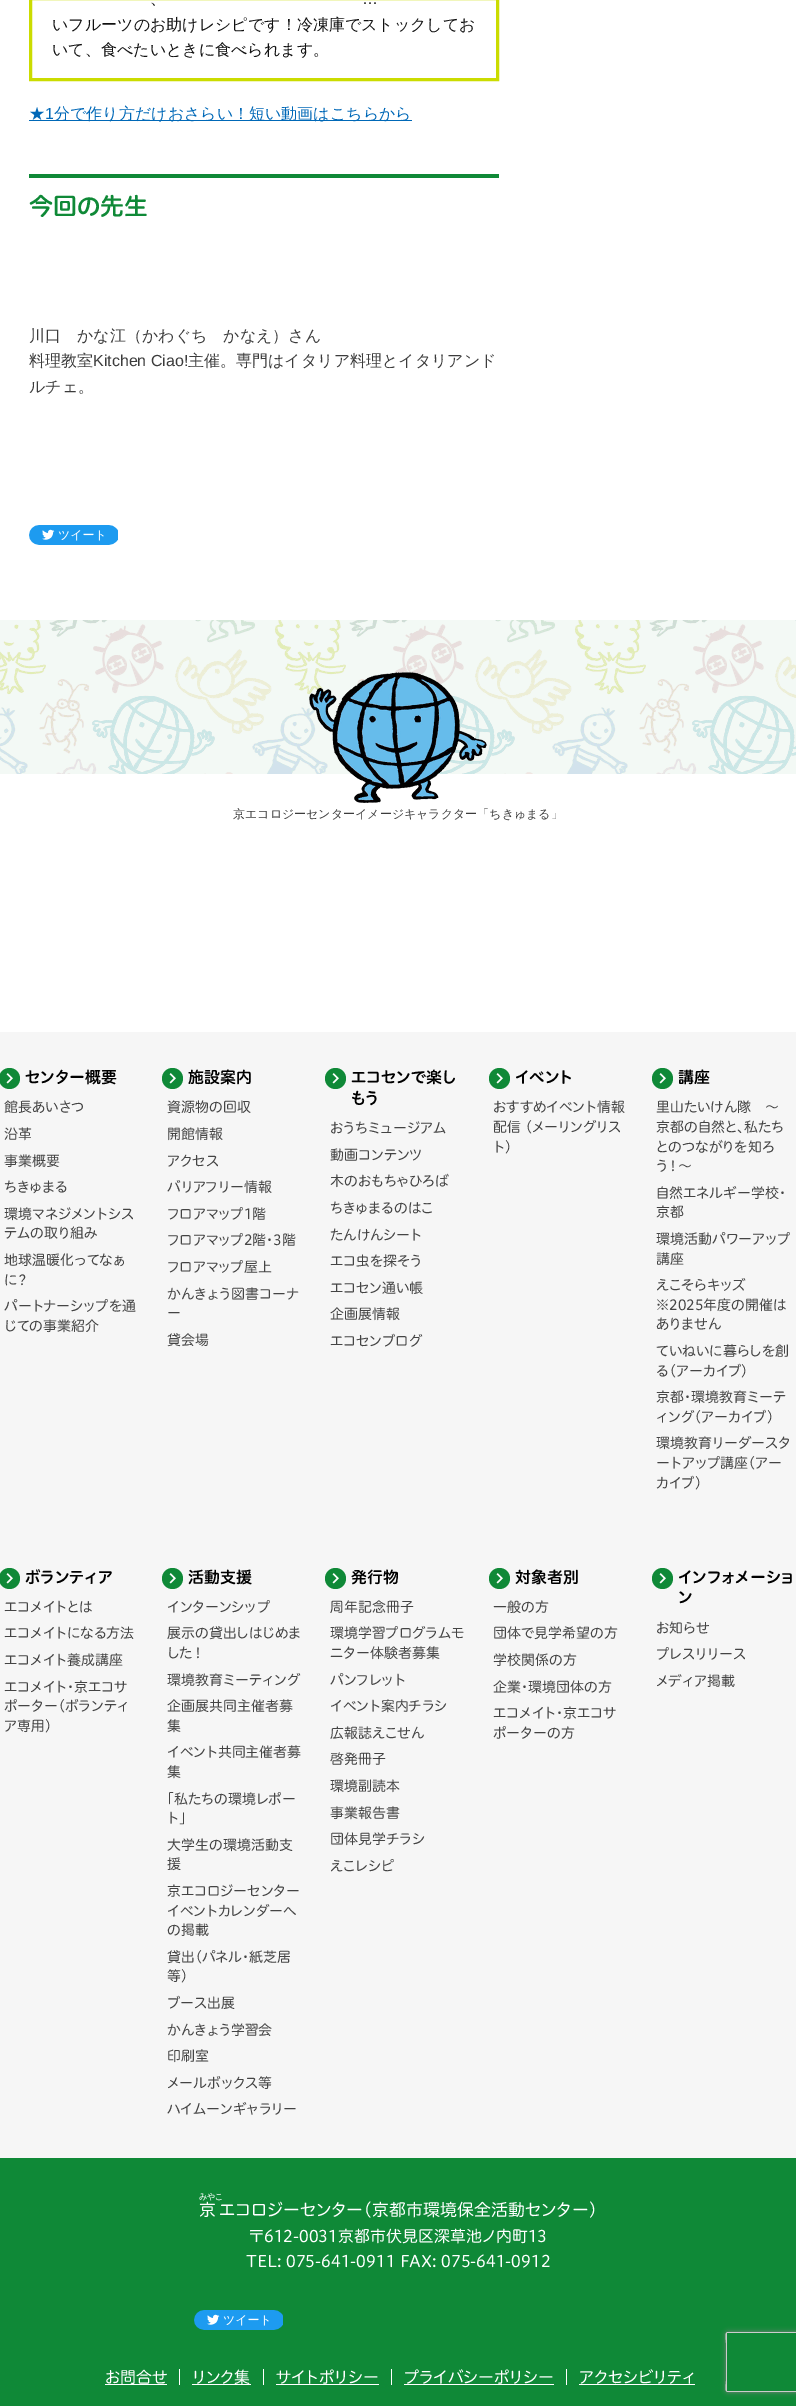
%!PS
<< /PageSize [796 2406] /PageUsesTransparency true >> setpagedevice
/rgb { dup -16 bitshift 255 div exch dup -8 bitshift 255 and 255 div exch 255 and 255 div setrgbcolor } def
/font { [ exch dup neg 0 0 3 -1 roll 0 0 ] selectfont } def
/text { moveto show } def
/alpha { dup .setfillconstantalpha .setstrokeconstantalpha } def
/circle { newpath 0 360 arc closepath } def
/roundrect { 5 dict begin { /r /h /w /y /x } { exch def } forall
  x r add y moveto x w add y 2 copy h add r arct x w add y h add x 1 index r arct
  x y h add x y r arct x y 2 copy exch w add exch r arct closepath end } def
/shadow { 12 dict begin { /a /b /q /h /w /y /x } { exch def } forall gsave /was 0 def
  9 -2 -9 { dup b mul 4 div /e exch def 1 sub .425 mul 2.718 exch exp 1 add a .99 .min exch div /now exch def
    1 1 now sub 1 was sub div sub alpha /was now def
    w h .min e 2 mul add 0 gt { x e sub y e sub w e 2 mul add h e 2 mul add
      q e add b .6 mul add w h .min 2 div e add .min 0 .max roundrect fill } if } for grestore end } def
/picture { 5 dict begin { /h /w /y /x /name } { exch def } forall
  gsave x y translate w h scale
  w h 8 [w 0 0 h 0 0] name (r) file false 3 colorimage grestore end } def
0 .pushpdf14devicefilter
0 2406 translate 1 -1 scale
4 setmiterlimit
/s1 { /WenQuanYiZenHei-Medium 16 font 16#111111 rgb } def
/s2 { /LiberationSans-Regular 16 font 16#111111 rgb } def
/s3 { /WenQuanYiZenHei-Medium 16 font 16#0068B7 rgb } def
/s4 { /LiberationSans-Regular 16 font 16#0068B7 rgb } def
/s5 { /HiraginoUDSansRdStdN-SemiBold 24 font 16#0F8937 rgb } def
/s6 { /WenQuanYiZenHei-Medium 16 font 16#3C3C3C rgb } def
/s7 { /LiberationSans-Regular 16 font 16#3C3C3C rgb } def
/s8 { /WenQuanYiZenHei-Medium 12 font 16#3C3C3C rgb } def
/s9 { /HiraginoUDSansRdStdN-SemiBold 16 font 16#000000 rgb } def
/s10 { /HiraginoUDSansRdStdN-Regular 14 font 16#444444 rgb } def
/s11 { /HiraginoUDSansRdStdN-Regular 8.5 font 16#FFFFFF rgb } def
/s12 { /HiraginoUDSansRdStdN-Regular 17 font 16#FFFFFF rgb } def
/s13 { /HiraginoUDSansRdStdN-Regular 16 font 16#FFFFFF rgb } def
16#FFFFFF rgb
0 0 796 2406 rectfill
(pic1.raw) 0 620 796 154 picture
16#CBDC00 rgb
3 setlinewidth
30.5 -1.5 467 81 rectstroke
s1
(、) 150 4 text
s2
(…) 362 4 text
s1
(いフルーツのお助けレシピです！冷凍庫でストックしてお) 52 30 text
(いて、食べたいときに食べられます。) 52 55 text
16#0068B7 rgb
29 120 383 1 rectfill
(★) 29 119 text
s4
(1) 45 119 text
s3
(分で作り方だけおさらい！短い動画はこちらから) 54 119 text
16#0F8937 rgb
29 174 470 4 rectfill
s5
(今回の先生) 29 215 text
s6
(川口　かな江（かわぐち　かなえ）さん) 29 341 text
(料理教室) 29 366 text
s7
(Kitchen Ciao!) 93 366 text
s6
(主催。専門はイタリア料理とイタリアンド) 188 366 text
(ルチェ。) 29 392 text
(pic2.raw) 29 525 89 20 picture
(pic3.raw) 309 672 178 131 picture
s8
(京エコロジーセンターイメージキャラクター「ちきゅまる」) 233 818 text
16#F6F6F6 rgb
0 1032 796 1126 rectfill
16#0F8937 rgb
9.5 1078.5 10.5 circle fill
(pic4.raw) 6 1073 7 11 picture
s9
(センター概要) 25 1083 text
s10
(館長あいさつ) 4 1112 text
(沿革) 4 1139 text
(事業概要) 4 1166 text
(ちきゅまる) 4 1192 text
(環境マネジメントシス) 4 1219 text
(テムの取り組み) 4 1238 text
(地球温暖化ってなぁ) 4 1265 text
(に？) 4 1285 text
(パートナーシップを通) 4 1311 text
(じての事業紹介) 4 1331 text
16#0F8937 rgb
172.5 1078.5 10.5 circle fill
(pic4.raw) 169 1073 7 11 picture
s9
(施設案内) 188 1083 text
s10
(資源物の回収) 167 1112 text
(開館情報) 167 1139 text
(アクセス) 167 1166 text
(バリアフリー情報) 167 1192 text
(フロアマップ1階) 167 1219 text
(フロアマップ2階・3階) 167 1245 text
(フロアマップ屋上) 167 1272 text
(かんきょう図書コーナ) 167 1299 text
(ー) 167 1318 text
(貸会場) 167 1345 text
16#0F8937 rgb
335.5 1078.5 10.5 circle fill
(pic4.raw) 332 1073 7 11 picture
s9
(エコセンで楽し) 351 1083 text
(もう) 351 1104 text
s10
(おうちミュージアム) 330 1133 text
(動画コンテンツ) 330 1160 text
(木のおもちゃひろば) 330 1186 text
(ちきゅまるのはこ) 330 1213 text
(たんけんシート) 330 1240 text
(エコ虫を探そう) 330 1266 text
(エコセン通い帳) 330 1293 text
(企画展情報) 330 1319 text
(エコセンブログ) 330 1346 text
16#0F8937 rgb
499.5 1078.5 10.5 circle fill
(pic4.raw) 496 1073 7 11 picture
s9
(イベント) 515 1083 text
s10
(おすすめイベント情報) 493 1112 text
(配信 \(メーリングリス) 493 1132 text
(ト\)) 493 1152 text
16#0F8937 rgb
662.5 1078.5 10.5 circle fill
(pic4.raw) 659 1073 7 11 picture
s9
(講座) 678 1083 text
s10
(里山たいけん隊　～) 656 1112 text
(京都の自然と、私たち) 656 1132 text
(とのつながりを知ろ) 656 1152 text
(う！～) 656 1171 text
(自然エネルギー学校・) 656 1198 text
(京都) 656 1217 text
(環境活動パワーアップ) 656 1244 text
(講座) 656 1264 text
(えこそらキッズ) 656 1290 text
(※2025年度の開催は) 656 1310 text
(ありません) 656 1329 text
(ていねいに暮らしを創) 656 1356 text
(る（アーカイブ）) 656 1376 text
(京都・環境教育ミーテ) 656 1402 text
(ィング（アーカイブ）) 656 1422 text
(環境教育リーダースタ) 656 1448 text
(ートアップ講座（アー) 656 1468 text
(カイブ）) 656 1488 text
16#0F8937 rgb
9.5 1578.5 10.5 circle fill
(pic4.raw) 6 1573 7 11 picture
s9
(ボランティア) 25 1583 text
s10
(エコメイトとは) 4 1612 text
(エコメイトになる方法) 4 1638 text
(エコメイト養成講座) 4 1665 text
(エコメイト・京エコサ) 4 1692 text
(ポーター\(ボランティ) 4 1711 text
(ア専用\)) 4 1731 text
16#0F8937 rgb
172.5 1578.5 10.5 circle fill
(pic4.raw) 169 1573 7 11 picture
s9
(活動支援) 188 1583 text
s10
(インターンシップ) 167 1612 text
(展示の貸出しはじめま) 167 1638 text
(した！) 167 1658 text
(環境教育ミーティング) 167 1685 text
(企画展共同主催者募) 167 1711 text
(集) 167 1731 text
(イベント共同主催者募) 167 1757 text
(集) 167 1777 text
(「私たちの環境レポー) 167 1804 text
(ト」) 167 1823 text
(大学生の環境活動支) 167 1850 text
(援) 167 1869 text
(京エコロジーセンター) 167 1896 text
(イベントカレンダーへ) 167 1916 text
(の掲載) 167 1935 text
(貸出（パネル・紙芝居) 167 1962 text
(等）) 167 1981 text
(ブース出展) 167 2008 text
(かんきょう学習会) 167 2035 text
(印刷室) 167 2061 text
(メールボックス等) 167 2088 text
(ハイムーンギャラリー) 167 2114 text
16#0F8937 rgb
335.5 1578.5 10.5 circle fill
(pic4.raw) 332 1573 7 11 picture
s9
(発行物) 351 1583 text
s10
(周年記念冊子) 330 1612 text
(環境学習プログラムモ) 330 1638 text
(ニター体験者募集) 330 1658 text
(パンフレット) 330 1685 text
(イベント案内チラシ) 330 1711 text
(広報誌えこせん) 330 1738 text
(啓発冊子) 330 1764 text
(環境副読本) 330 1791 text
(事業報告書) 330 1818 text
(団体見学チラシ) 330 1844 text
(えこレシピ) 330 1871 text
16#0F8937 rgb
499.5 1578.5 10.5 circle fill
(pic4.raw) 496 1573 7 11 picture
s9
(対象者別) 515 1583 text
s10
(一般の方) 493 1612 text
(団体で見学希望の方) 493 1638 text
(学校関係の方) 493 1665 text
(企業・環境団体の方) 493 1692 text
(エコメイト・京エコサ) 493 1718 text
(ポーターの方) 493 1738 text
16#0F8937 rgb
662.5 1578.5 10.5 circle fill
(pic4.raw) 659 1573 7 11 picture
s9
(インフォメーショ) 678 1583 text
(ン) 678 1603 text
s10
(お知らせ) 656 1633 text
(プレスリリース) 656 1659 text
(メディア掲載) 656 1686 text
16#0F8937 rgb
0 2158 796 248 rectfill
s11
(みやこ) 199 2200 text
s12
(京) 199 2216 text
(エコロジーセンター（京都市環境保全活動センター）) 219 2216 text
s13
(〒612-0031京都市伏見区深草池ノ内町13) 249 2242 text
(TEL: 075-641-0911 FAX: 075-641-0912) 246 2267 text
(pic5.raw) 194 2310 89 20 picture
105 2384 62 1 rectfill
(お問合せ) 105 2383 text
179 2369 1 16 rectfill
192 2384 59 1 rectfill
(リンク集) 192 2383 text
263 2369 1 16 rectfill
(サイトポリシー) 276 2383 text
276 2384 103 1 rectfill
391 2369 1 16 rectfill
(プライバシーポリシー) 404 2383 text
404 2384 150 1 rectfill
566 2369 1 16 rectfill
(アクセシビリティ) 579 2383 text
579 2384 116 1 rectfill
gsave
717 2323 moveto 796 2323 lineto 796 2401 lineto 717 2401 lineto closepath 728 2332 moveto 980 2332 lineto 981 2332 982 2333 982 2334 curveto 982 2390 lineto 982 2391 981 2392 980 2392 curveto 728 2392 lineto 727 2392 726 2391 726 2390 curveto 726 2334 lineto 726 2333 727 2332 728 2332 curveto closepath eoclip newpath
16#808080 rgb
726 2332 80 60 2 2.5 1 shadow
grestore
16#CCCCCC rgb
728 2332 moveto 724 2332 726 2339 726 2343 curveto 726 2381 lineto 726 2385 724 2392 728 2392 curveto 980 2392 lineto 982 2391 lineto 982 2333 lineto 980 2332 lineto closepath 727 2333 moveto 727 2391 lineto 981 2391 lineto 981 2333 lineto closepath eofill
.poppdf14devicefilter showpage
